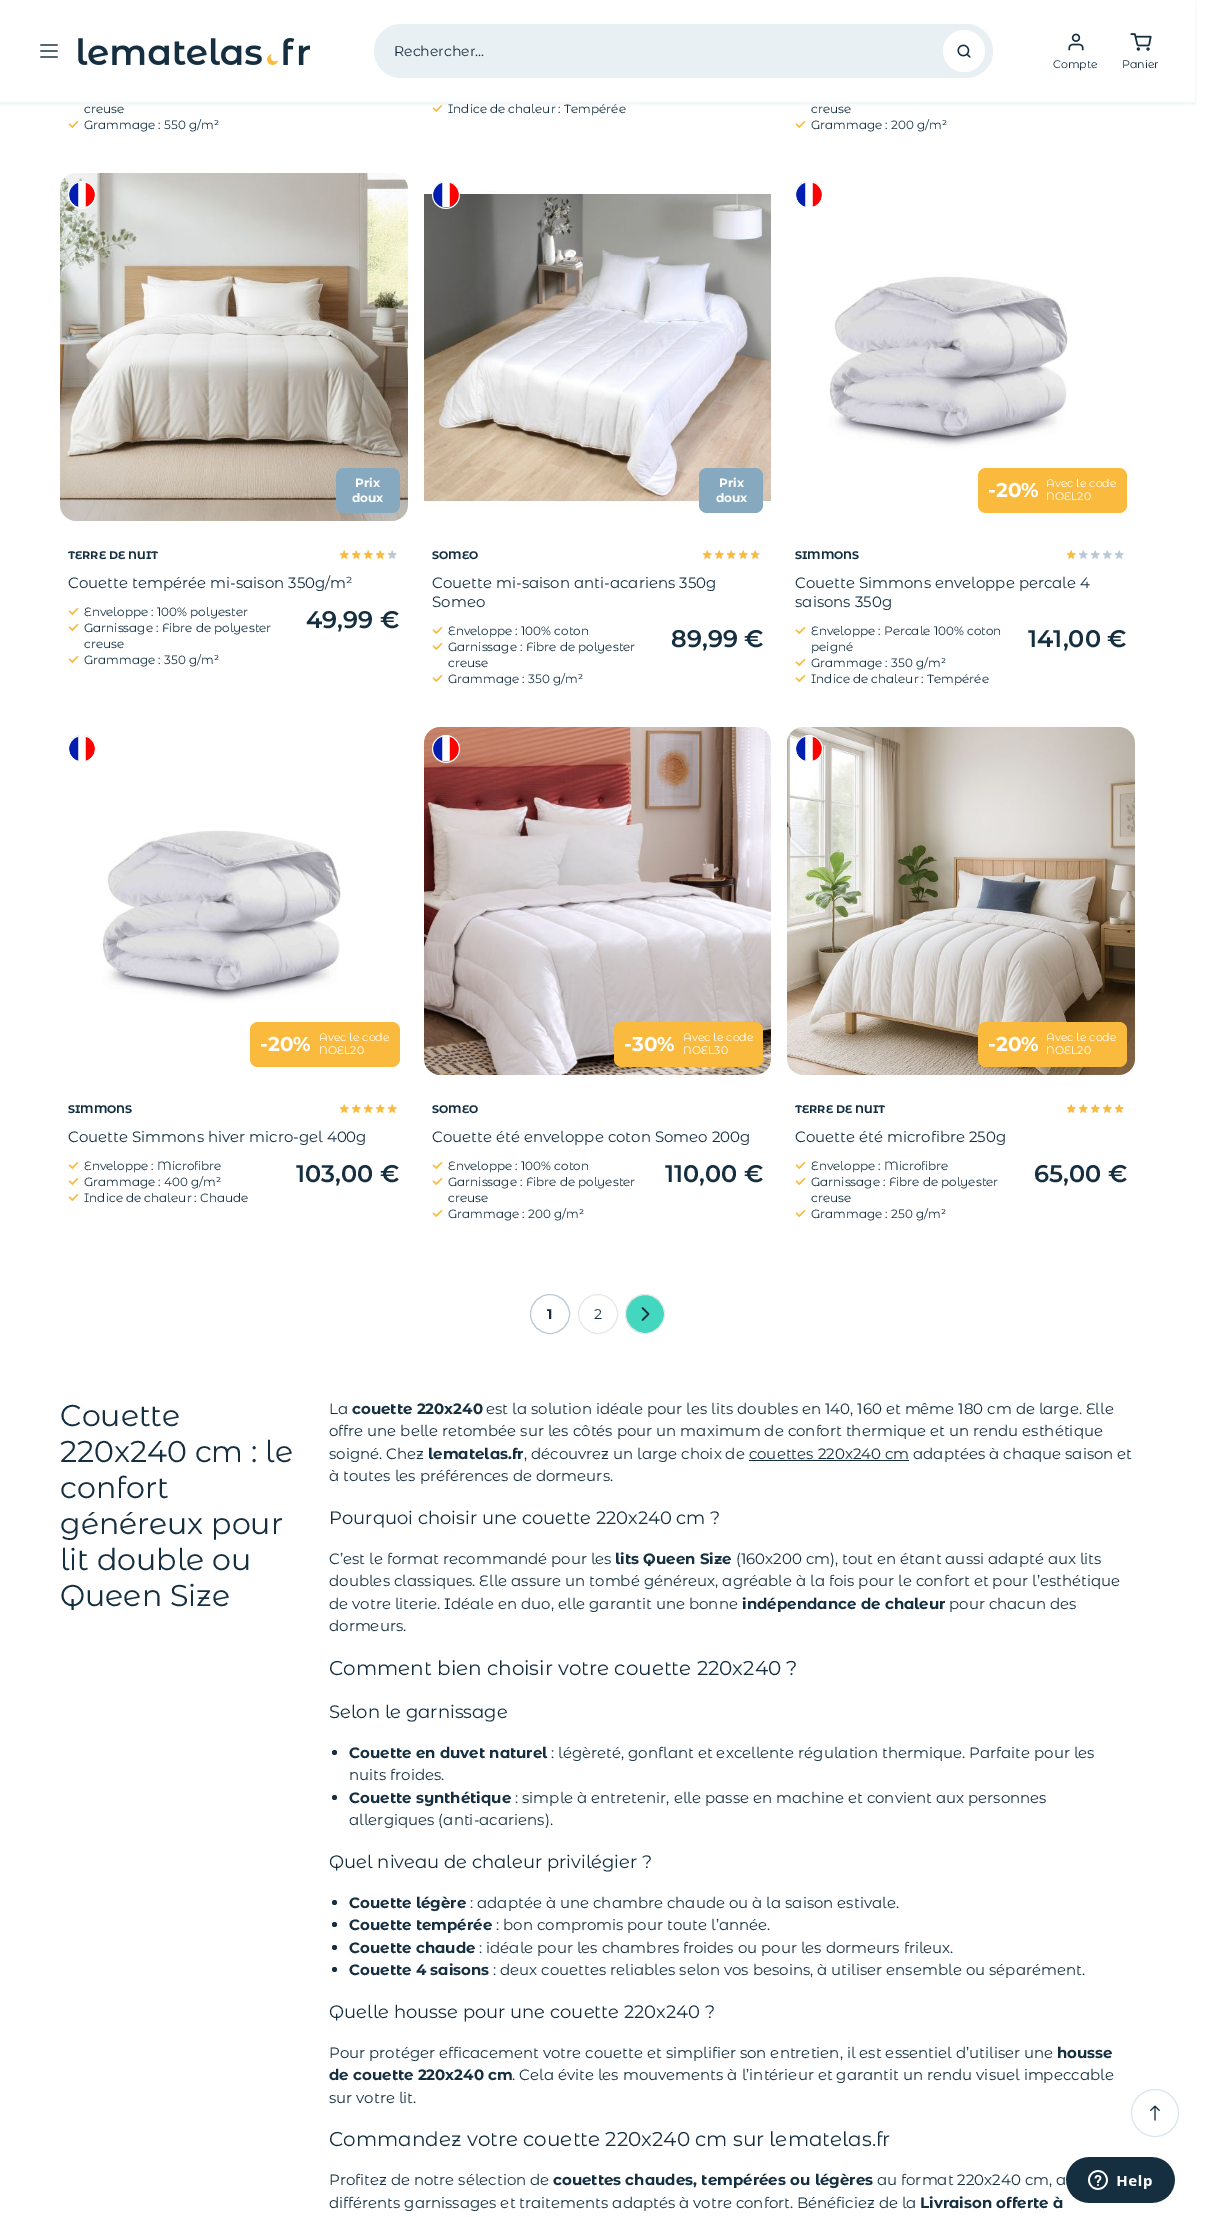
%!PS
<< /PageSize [1210 2217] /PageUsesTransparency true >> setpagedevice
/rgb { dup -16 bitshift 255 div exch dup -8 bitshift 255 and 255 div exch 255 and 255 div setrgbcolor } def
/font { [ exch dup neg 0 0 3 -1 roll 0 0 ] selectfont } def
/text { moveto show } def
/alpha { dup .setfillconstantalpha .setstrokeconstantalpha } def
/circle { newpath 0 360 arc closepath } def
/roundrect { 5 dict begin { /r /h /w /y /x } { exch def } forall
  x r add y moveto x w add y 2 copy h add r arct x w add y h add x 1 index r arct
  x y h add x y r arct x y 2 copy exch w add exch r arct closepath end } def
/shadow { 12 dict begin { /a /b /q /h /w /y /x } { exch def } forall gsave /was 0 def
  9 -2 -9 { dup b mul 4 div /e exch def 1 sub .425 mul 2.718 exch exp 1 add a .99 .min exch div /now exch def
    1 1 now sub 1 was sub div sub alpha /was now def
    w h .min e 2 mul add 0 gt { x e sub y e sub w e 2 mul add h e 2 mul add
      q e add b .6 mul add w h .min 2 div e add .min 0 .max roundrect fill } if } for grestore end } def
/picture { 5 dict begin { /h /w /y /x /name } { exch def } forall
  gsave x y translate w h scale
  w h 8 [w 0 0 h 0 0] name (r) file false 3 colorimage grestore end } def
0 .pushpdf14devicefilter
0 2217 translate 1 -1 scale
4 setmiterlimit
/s1 { /MontserratAlternates-Regular 14 font 16#152F40 rgb } def
/s2 { /MontserratAlternates-Regular 11 font 16#152F40 rgb } def
/s3 { /MontserratAlternates-Regular 12 font 16#152F40 rgb } def
/s4 { /MontserratAlternates-Bold 12 font 16#FFFFFF rgb } def
/s5 { /MontserratAlternates-Bold 11 font 16#152F40 rgb } def
/s6 { /MontserratAlternates-Regular 15 font 16#152F40 rgb } def
/s7 { /MontserratAlternates-SemiBold 24 font 16#152F40 rgb } def
/s8 { /MontserratAlternates-Bold 20 font 16#FFFFFF rgb } def
/s9 { /MontserratAlternates-Regular 11 font 16#FFFFFF rgb } def
/s10 { /MontserratAlternates-Bold 14 font 16#152F40 rgb } def
/s11 { /MontserratAlternates-Regular 30 font 16#152F40 rgb } def
/s12 { /MontserratAlternates-Bold 15 font 16#152F40 rgb } def
/s13 { /MontserratAlternates-Regular 18 font 16#152F40 rgb } def
/s14 { /MontserratAlternates-Regular 20 font 16#152F40 rgb } def
16#FFFFFF rgb
0 0 1210 2217 rectfill
(pic5.raw) 432 104 11 9 picture
16#E9F0F4 rgb
1 2 1193 101 0 1 1 shadow
0 1 1195 103 0 1.5 1 shadow
16#FFFFFF rgb
0 0 1195 102 rectfill
16#F5F5F5 rgb
0 102 1195 1 rectfill
16#152F40 rgb
1.3 setlinewidth
1 setlinecap
1 setlinejoin
41 51 moveto 57 51 lineto 41 45 moveto 57 45 lineto 41 57 moveto 57 57 lineto stroke
(pic1.raw) 78 38 232 27 picture
16#E9F0F4 rgb
374 24 619 54 27 roundrect fill
s1
(Rechercher...) 394 56 text
16#FFFFFF rgb
964 51 21 circle fill
(pic2.raw) 957 44 14 14 picture
(pic3.raw) 1068 33 16 18 picture
s2
(Compte) 1053 68 text
(pic4.raw) 1130 33 22 18 picture
(Panier) 1122 68 text
s3
(creuse) 84 113 text
(pic5.raw) 68 120 11 9 picture
(Grammage : 550 g/m²) 84 129 text
(Indice de chaleur : Tempérée) 448 113 text
(creuse) 811 113 text
(pic5.raw) 795 120 11 9 picture
(Grammage : 200 g/m²) 811 129 text
(pic6.raw) 60 173 348 348 picture
(pic7.raw) 68 181 28 28 picture
16#87A9BF rgb
336 468 64 45 8 roundrect fill
s4
(Prix) 355 487 text
(doux) 352 502 text
s5
(TERRE DE NUIT) 68 559 text
(pic8.raw) 340 550 9 9 picture
(pic8.raw) 352 550 9 9 picture
(pic8.raw) 364 550 9 9 picture
(pic8.raw) 376 550 9 9 picture
(pic9.raw) 388 550 9 9 picture
s6
(Couette tempérée mi-saison 350g/m²) 68 588 text
(pic5.raw) 68 607 11 9 picture
s3
(Enveloppe : 100% polyester) 84 616 text
(pic5.raw) 68 623 11 9 picture
(Garnissage : Fibre de polyester) 84 632 text
(creuse) 84 648 text
(pic5.raw) 68 655 11 9 picture
(Grammage : 350 g/m²) 84 664 text
s7
(49,99 €) 306 628 text
(pic11.raw) 424 191 347 316 picture
(pic10.raw) 432 181 28 28 picture
16#87A9BF rgb
699 468 64 45 8 roundrect fill
s4
(Prix) 719 487 text
(doux) 716 502 text
s5
(SOMEO) 432 559 text
(pic8.raw) 703 550 9 9 picture
(pic8.raw) 715 550 9 9 picture
(pic8.raw) 727 550 9 9 picture
(pic8.raw) 739 550 9 9 picture
(pic12.raw) 751 550 9 9 picture
s6
(Couette mi-saison anti-acariens 350g) 432 588 text
(Someo) 432 607 text
(pic5.raw) 432 626 11 9 picture
s3
(Enveloppe : 100% coton) 448 635 text
(pic5.raw) 432 642 11 9 picture
(Garnissage : Fibre de polyester) 448 651 text
(creuse) 448 667 text
(pic5.raw) 432 674 11 9 picture
(Grammage : 350 g/m²) 448 683 text
s7
(89,99 €) 671 647 text
(pic13.raw) 796 181 26 26 picture
(pic14.raw) 826 276 242 173 picture
16#F9BA3D rgb
978 468 149 45 8 roundrect fill
s8
(-20%) 988 497 text
s9
(Avec le code) 1046 487 text
(NOEL20) 1046 500 text
s5
(SIMMONS) 795 559 text
(pic8.raw) 1067 550 9 9 picture
(pic15.raw) 1079 550 9 9 picture
(pic15.raw) 1091 550 9 9 picture
(pic15.raw) 1103 550 9 9 picture
(pic15.raw) 1115 550 9 9 picture
s6
(Couette Simmons enveloppe percale 4) 795 588 text
(saisons 350g) 795 607 text
(pic5.raw) 795 626 11 9 picture
s3
(Enveloppe : Percale 100% coton) 811 635 text
(peigné) 811 651 text
(pic5.raw) 795 658 11 9 picture
(Grammage : 350 g/m²) 811 667 text
(pic5.raw) 795 674 11 9 picture
(Indice de chaleur : Tempérée) 811 683 text
s7
(141,00 €) 1028 647 text
(pic13.raw) 69 735 26 26 picture
(pic16.raw) 99 830 242 173 picture
16#F9BA3D rgb
250 1022 150 45 8 roundrect fill
s8
(-20%) 260 1051 text
s9
(Avec le code) 319 1041 text
(NOEL20) 319 1054 text
s5
(SIMMONS) 68 1113 text
(pic8.raw) 340 1104 9 9 picture
(pic8.raw) 352 1104 9 9 picture
(pic8.raw) 364 1104 9 9 picture
(pic8.raw) 376 1104 9 9 picture
(pic8.raw) 388 1104 9 9 picture
s6
(Couette Simmons hiver micro-gel 400g) 68 1142 text
(pic5.raw) 68 1161 11 9 picture
s3
(Enveloppe : Microfibre) 84 1170 text
(pic5.raw) 68 1177 11 9 picture
(Grammage : 400 g/m²) 84 1186 text
(pic5.raw) 68 1193 11 9 picture
(Indice de chaleur : Chaude) 84 1202 text
s7
(103,00 €) 296 1182 text
(pic17.raw) 424 727 347 348 picture
(pic18.raw) 432 735 28 28 picture
16#F9BA3D rgb
614 1022 149 45 8 roundrect fill
s8
(-30%) 624 1051 text
s9
(Avec le code) 683 1041 text
(NOEL30) 683 1054 text
s5
(SOMEO) 432 1113 text
s6
(Couette été enveloppe coton Someo 200g) 432 1142 text
(pic5.raw) 432 1161 11 9 picture
s3
(Enveloppe : 100% coton) 448 1170 text
(pic5.raw) 432 1177 11 9 picture
(Garnissage : Fibre de polyester) 448 1186 text
(creuse) 448 1202 text
(pic5.raw) 432 1209 11 9 picture
(Grammage : 200 g/m²) 448 1218 text
s7
(110,00 €) 665 1182 text
(pic19.raw) 787 727 348 348 picture
(pic20.raw) 796 735 27 26 picture
16#F9BA3D rgb
978 1022 149 45 8 roundrect fill
s8
(-20%) 988 1051 text
s9
(Avec le code) 1046 1041 text
(NOEL20) 1046 1054 text
s5
(TERRE DE NUIT) 795 1113 text
(pic8.raw) 1067 1104 9 9 picture
(pic8.raw) 1079 1104 9 9 picture
(pic8.raw) 1091 1104 9 9 picture
(pic8.raw) 1103 1104 9 9 picture
(pic8.raw) 1115 1104 9 9 picture
s6
(Couette été microfibre 250g) 795 1142 text
(pic5.raw) 795 1161 11 9 picture
s3
(Enveloppe : Microfibre) 811 1170 text
(pic5.raw) 795 1177 11 9 picture
(Garnissage : Fibre de polyester) 811 1186 text
(creuse) 811 1202 text
(pic5.raw) 795 1209 11 9 picture
(Grammage : 250 g/m²) 811 1218 text
s7
(65,00 €) 1034 1182 text
16#B9C9D6 rgb
1 setlinewidth
0 setlinecap
0 setlinejoin
550 1314 19.5 circle stroke
s10
(1) 547 1319 text
16#E7E7E7 rgb
598 1314 19.5 circle stroke
s1
(2) 594 1319 text
16#42D7BE rgb
645 1314 19.5 circle gsave fill grestore
16#E7E7E7 rgb
stroke
16#152F40 rgb
1.7 setlinewidth
1 setlinecap
1 setlinejoin
642.5 1308 moveto 648.5 1314 lineto 642.5 1320 lineto stroke
s11
(Couette) 60 1426 text
(220x240 cm : le) 60 1462 text
(confort) 60 1498 text
(généreux pour) 60 1534 text
(lit double ou) 60 1570 text
(Queen Size) 60 1606 text
s6
(La) 329 1414 text
s12
(couette 220x240) 352 1414 text
s6
(est la solution idéale pour les lits doubles en 140, 160 et même 180 cm de large. Elle) 486 1414 text
(offre une belle retombée sur les côtés pour un maximum de confort thermique et un rendu esthétique) 329 1436 text
(soigné. Chez) 329 1459 text
s12
(lematelas.fr) 428 1459 text
s6
(, découvrez un large choix de couettes 220x240 cm adaptées à chaque saison et) 524 1459 text
749 1460 160 1 rectfill
(à toutes les préférences de dormeurs.) 329 1481 text
s13
(Pourquoi choisir une couette 220x240 cm ?) 329 1524 text
s6
(C’est le format recommandé pour les) 329 1564 text
s12
(lits Queen Size) 615 1564 text
s6
(\(160x200 cm\), tout en étant aussi adapté aux lits) 736 1564 text
(doubles classiques. Elle assure un tombé généreux, agréable à la fois pour le confort et pour l’esthétique) 329 1586 text
(de votre literie. Idéale en duo, elle garantit une bonne) 329 1609 text
s12
(indépendance de chaleur) 742 1609 text
s6
(pour chacun des) 949 1609 text
(dormeurs.) 329 1631 text
s14
(Comment bien choisir votre couette 220x240 ?) 329 1675 text
s13
(Selon le garnissage) 329 1718 text
334.5 1752.5 2.5 circle fill
s12
(Couette en duvet naturel) 349 1758 text
s6
(: légèreté, gonflant et excellente régulation thermique. Parfaite pour les) 551 1758 text
(nuits froides.) 349 1780 text
334.5 1797.5 2.5 circle fill
s12
(Couette synthétique) 349 1803 text
s6
(: simple à entretenir, elle passe en machine et convient aux personnes) 515 1803 text
(allergiques \(anti-acariens\).) 349 1825 text
s13
(Quel niveau de chaleur privilégier ?) 329 1868 text
334.5 1902.5 2.5 circle fill
s12
(Couette légère) 349 1908 text
s6
(: adaptée à une chambre chaude ou à la saison estivale.) 470 1908 text
334.5 1924.5 2.5 circle fill
s12
(Couette tempérée) 349 1930 text
s6
(: bon compromis pour toute l’année.) 496 1930 text
334.5 1947.5 2.5 circle fill
s12
(Couette chaude) 349 1953 text
s6
(: idéale pour les chambres froides ou pour les dormeurs frileux.) 479 1953 text
334.5 1969.5 2.5 circle fill
s12
(Couette 4 saisons) 349 1975 text
s6
(: deux couettes reliables selon vos besoins, à utiliser ensemble ou séparément.) 493 1975 text
s13
(Quelle housse pour une couette 220x240 ?) 329 2018 text
s6
(Pour protéger efficacement votre couette et simplifier son entretien, il est essentiel d’utiliser une) 329 2058 text
s12
(housse) 1057 2058 text
(de couette 220x240 cm) 329 2080 text
s6
(. Cela évite les mouvements à l’intérieur et garantit un rendu visuel impeccable) 512 2080 text
(sur votre lit.) 329 2103 text
s14
(Commandez votre couette 220x240 cm sur lematelas.fr) 329 2146 text
s6
(Profitez de notre sélection de) 329 2185 text
s12
(couettes chaudes, tempérées ou légères) 553 2185 text
s6
(au format 220x240 cm, a) 877 2185 text
(différents garnissages et traitements adaptés à votre confort. Bénéficiez de la) 329 2208 text
s12
(Livraison offerte à) 920 2208 text
16#DBE5EC rgb
1 setlinewidth
0 setlinecap
0 setlinejoin
1155 2113 23.5 circle stroke
(pic21.raw) 1150 2105 10 16 picture
(pic22.raw) 1066 2157 109 46 picture
.poppdf14devicefilter showpage
